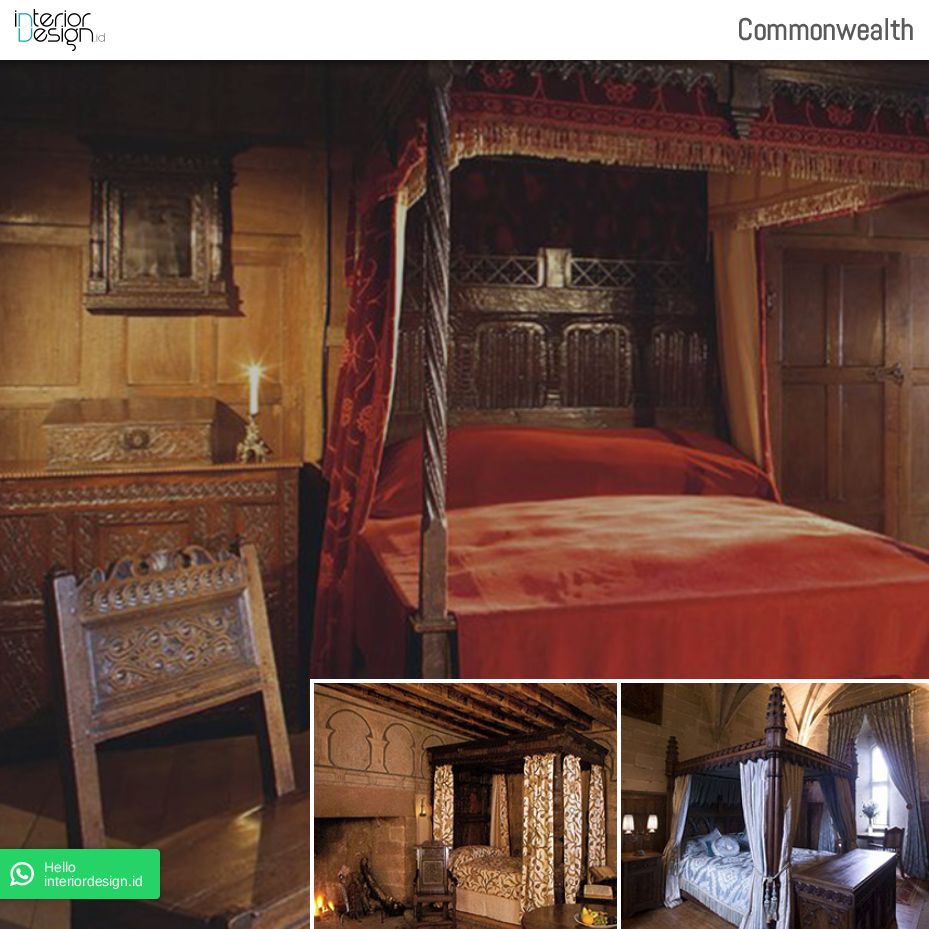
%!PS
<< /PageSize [929 929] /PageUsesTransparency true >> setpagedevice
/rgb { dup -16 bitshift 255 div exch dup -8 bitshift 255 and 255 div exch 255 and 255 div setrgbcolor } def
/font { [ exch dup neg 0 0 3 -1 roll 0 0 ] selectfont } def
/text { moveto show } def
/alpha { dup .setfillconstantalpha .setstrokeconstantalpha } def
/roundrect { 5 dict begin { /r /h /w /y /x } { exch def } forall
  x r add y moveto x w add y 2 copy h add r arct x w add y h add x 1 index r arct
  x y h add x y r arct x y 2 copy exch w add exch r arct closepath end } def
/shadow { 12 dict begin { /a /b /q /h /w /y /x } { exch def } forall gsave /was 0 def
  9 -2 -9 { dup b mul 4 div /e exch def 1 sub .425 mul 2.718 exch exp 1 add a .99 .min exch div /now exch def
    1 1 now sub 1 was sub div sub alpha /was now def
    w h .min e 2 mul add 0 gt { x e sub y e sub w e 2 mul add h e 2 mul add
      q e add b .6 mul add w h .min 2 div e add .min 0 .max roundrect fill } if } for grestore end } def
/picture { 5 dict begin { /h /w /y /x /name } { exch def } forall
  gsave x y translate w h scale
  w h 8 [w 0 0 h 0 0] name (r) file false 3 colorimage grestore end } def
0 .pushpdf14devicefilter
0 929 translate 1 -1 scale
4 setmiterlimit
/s1 { /Abel-Bold 30 font 16#5A5A5A rgb } def
/s2 { /LiberationSans-Regular 14 font 16#FFFFFF rgb } def
16#FFFFFF rgb
0 0 929 929 rectfill
(pic2.raw) 0 60 929 869 picture
16#000000 rgb
0 4 929 60 0 3 0.35 shadow
16#FFFFFF rgb
0 0 929 60 rectfill
(pic1.raw) 15 9 90 42 picture
s1
(Commonwealth) 737 40 text
16#FFFFFF rgb
310 679 619 4 rectfill
617 679 4 250 rectfill
310 679 4 250 rectfill
(pic3.raw) 314 683 303 246 picture
(pic4.raw) 621 683 308 246 picture
16#000000 rgb
0 848 160 50 4 3 0.3 shadow
16#25D366 rgb
0 849 moveto 156 849 lineto 158 849 160 851 160 853 curveto 160 895 lineto 160 897 158 899 156 899 curveto 0 899 lineto closepath fill
(pic5.raw) 10 862 24 24 picture
s2
(Hello) 44 872 text
(interiordesign.id) 44 886 text
.poppdf14devicefilter showpage
